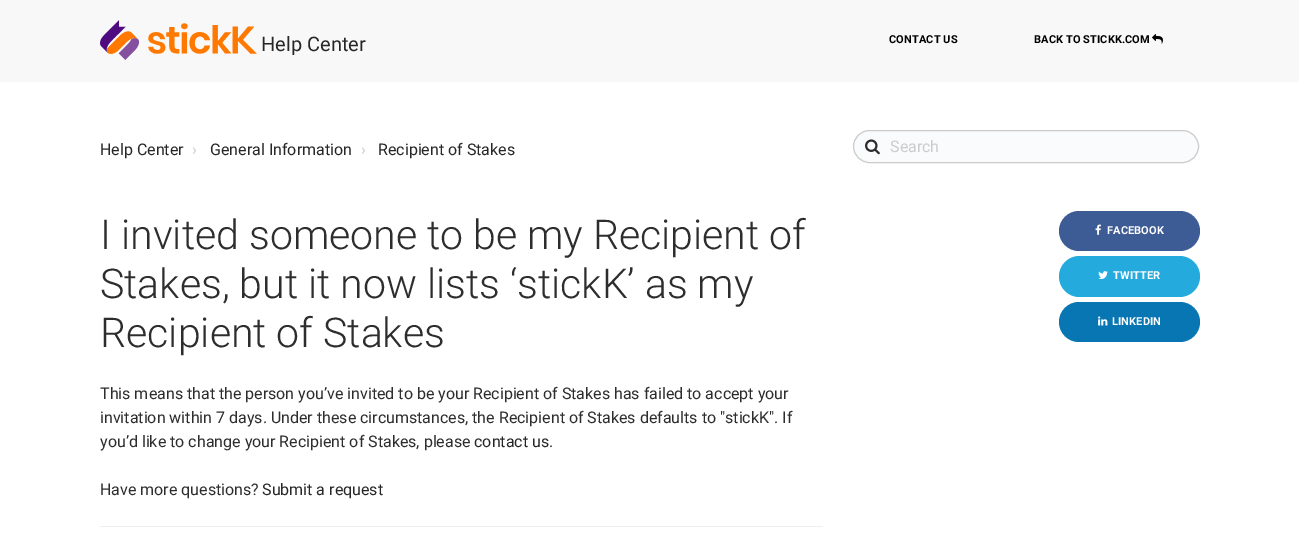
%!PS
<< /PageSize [1299 542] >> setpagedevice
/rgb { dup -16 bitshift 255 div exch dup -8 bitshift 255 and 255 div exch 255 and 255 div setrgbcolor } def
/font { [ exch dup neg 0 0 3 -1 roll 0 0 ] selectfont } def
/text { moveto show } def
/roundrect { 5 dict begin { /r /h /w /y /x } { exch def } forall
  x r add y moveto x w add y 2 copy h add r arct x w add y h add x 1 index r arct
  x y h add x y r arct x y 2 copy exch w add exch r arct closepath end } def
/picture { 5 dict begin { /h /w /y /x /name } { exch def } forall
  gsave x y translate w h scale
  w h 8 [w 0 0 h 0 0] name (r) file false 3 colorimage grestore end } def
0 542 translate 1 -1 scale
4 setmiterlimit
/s1 { /Roboto-Regular 20 font 16#272727 rgb } def
/s2 { /Roboto-Regular 16 font 16#272727 rgb } def
/s3 { /Roboto-Regular 16 font 16#CCCCCC rgb } def
/s4 { /Roboto-Light 41 font 16#2D2D2D rgb } def
/s5 { /Roboto-Regular 16 font 16#2D2D2D rgb } def
16#FFFFFF rgb
0 0 1299 542 rectfill
16#F8F8F8 rgb
0 0 1299 82 rectfill
(pic1.raw) 100 20 157 40 picture
s1
(Help Center) 261 51 text
/Roboto-Bold 11 font
16#000000 rgb
889 43 moveto 0.1 0 (CONTACT US) ashow
1034 43 moveto 0.1 0 (BACK TO STICKK.COM) ashow
(pic2.raw) 1152 34 11 10 picture
s2
(Help Center) 100 155 text
s3
(›) 192 155 text
s2
(General Information) 210 155 text
s3
(›) 361 155 text
s2
(Recipient of Stakes) 378 155 text
16#F9FBFD rgb
853.5 130.5 345 32 16 roundrect gsave fill grestore
16#CCCCCC rgb
stroke
(pic3.raw) 865 139 15 16 picture
(Search) 890 152 text
s4
(I invited someone to be my Recipient of) 100 249 text
(Stakes, but it now lists ‘stickK’ as my) 100 298 text
(Recipient of Stakes) 100 347 text
16#3D5B95 rgb
1059 211 141 40 20 roundrect fill
(pic4.raw) 1095 224 6 11 picture
/Roboto-Bold 11 font
16#FFFFFF rgb
1107 234 moveto 0.1 0 (FACEBOOK) ashow
16#24AADD rgb
1059 256 141 41 20.5 roundrect fill
(pic5.raw) 1098 271 10 8 picture
16#FFFFFF rgb
1113 279 moveto 0.1 0 (TWITTER) ashow
16#0976B4 rgb
1059 302 141 40 20 roundrect fill
(pic6.raw) 1098 316 10 10 picture
16#FFFFFF rgb
1112 325 moveto 0.1 0 (LINKEDIN) ashow
s5
(This means that the person you’ve invited to be your Recipient of Stakes has failed to accept your) 100 399 text
(invitation within 7 days. Under these circumstances, the Recipient of Stakes defaults to "stickK". If) 100 423 text
(you’d like to change your Recipient of Stakes, please) 100 447 text
s2
(contact us) 474 447 text
s5
(.) 549 447 text
(Have more questions?) 100 495 text
s2
(Submit a request) 262 495 text
16#EEEEEE rgb
100 526 723 1 rectfill
showpage
